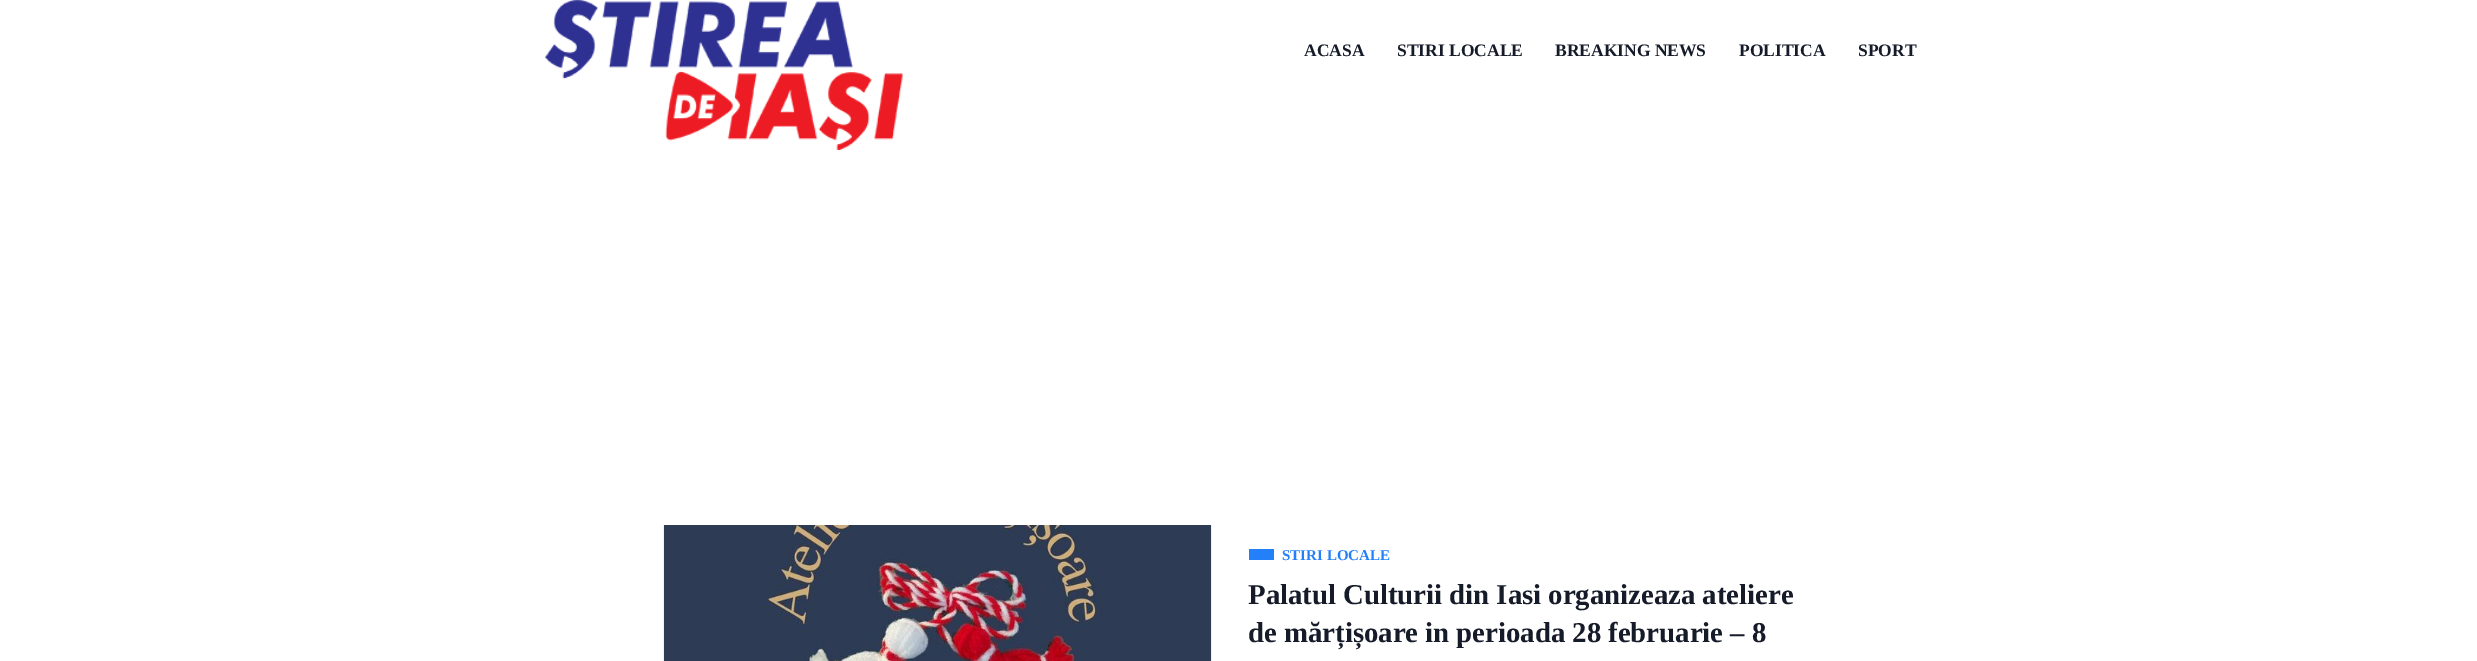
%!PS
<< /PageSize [2477 661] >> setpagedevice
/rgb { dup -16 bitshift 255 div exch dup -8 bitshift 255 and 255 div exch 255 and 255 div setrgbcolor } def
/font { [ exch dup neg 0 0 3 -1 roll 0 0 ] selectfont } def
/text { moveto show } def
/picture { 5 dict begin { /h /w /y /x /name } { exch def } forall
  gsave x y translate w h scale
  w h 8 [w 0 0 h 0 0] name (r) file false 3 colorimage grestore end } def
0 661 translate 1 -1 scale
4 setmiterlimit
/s1 { /LiberationSerif-Bold 17.5 font 16#161B2A rgb } def
/s2 { /LiberationSerif-Bold 15 font 16#2380F9 rgb } def
/s3 { /LiberationSerif-Bold 28.75 font 16#161B2A rgb } def
16#FFFFFF rgb
0 0 2477 661 rectfill
(pic1.raw) 545 0 358 150 picture
s1
(ACASA) 1304 56 text
(STIRI LOCALE) 1397 56 text
(BREAKING NEWS) 1555 56 text
(POLITICA) 1739 56 text
(SPORT) 1858 56 text
(pic2.raw) 663 525 549 136 picture
16#2380F9 rgb
1249 549 25 11 rectfill
s2
(STIRI LOCALE) 1282 560 text
s3
(Palatul Culturii din Iasi organizeaza ateliere) 1248 604 text
(de mărțișoare in perioada 28 februarie – 8) 1248 642 text
showpage
